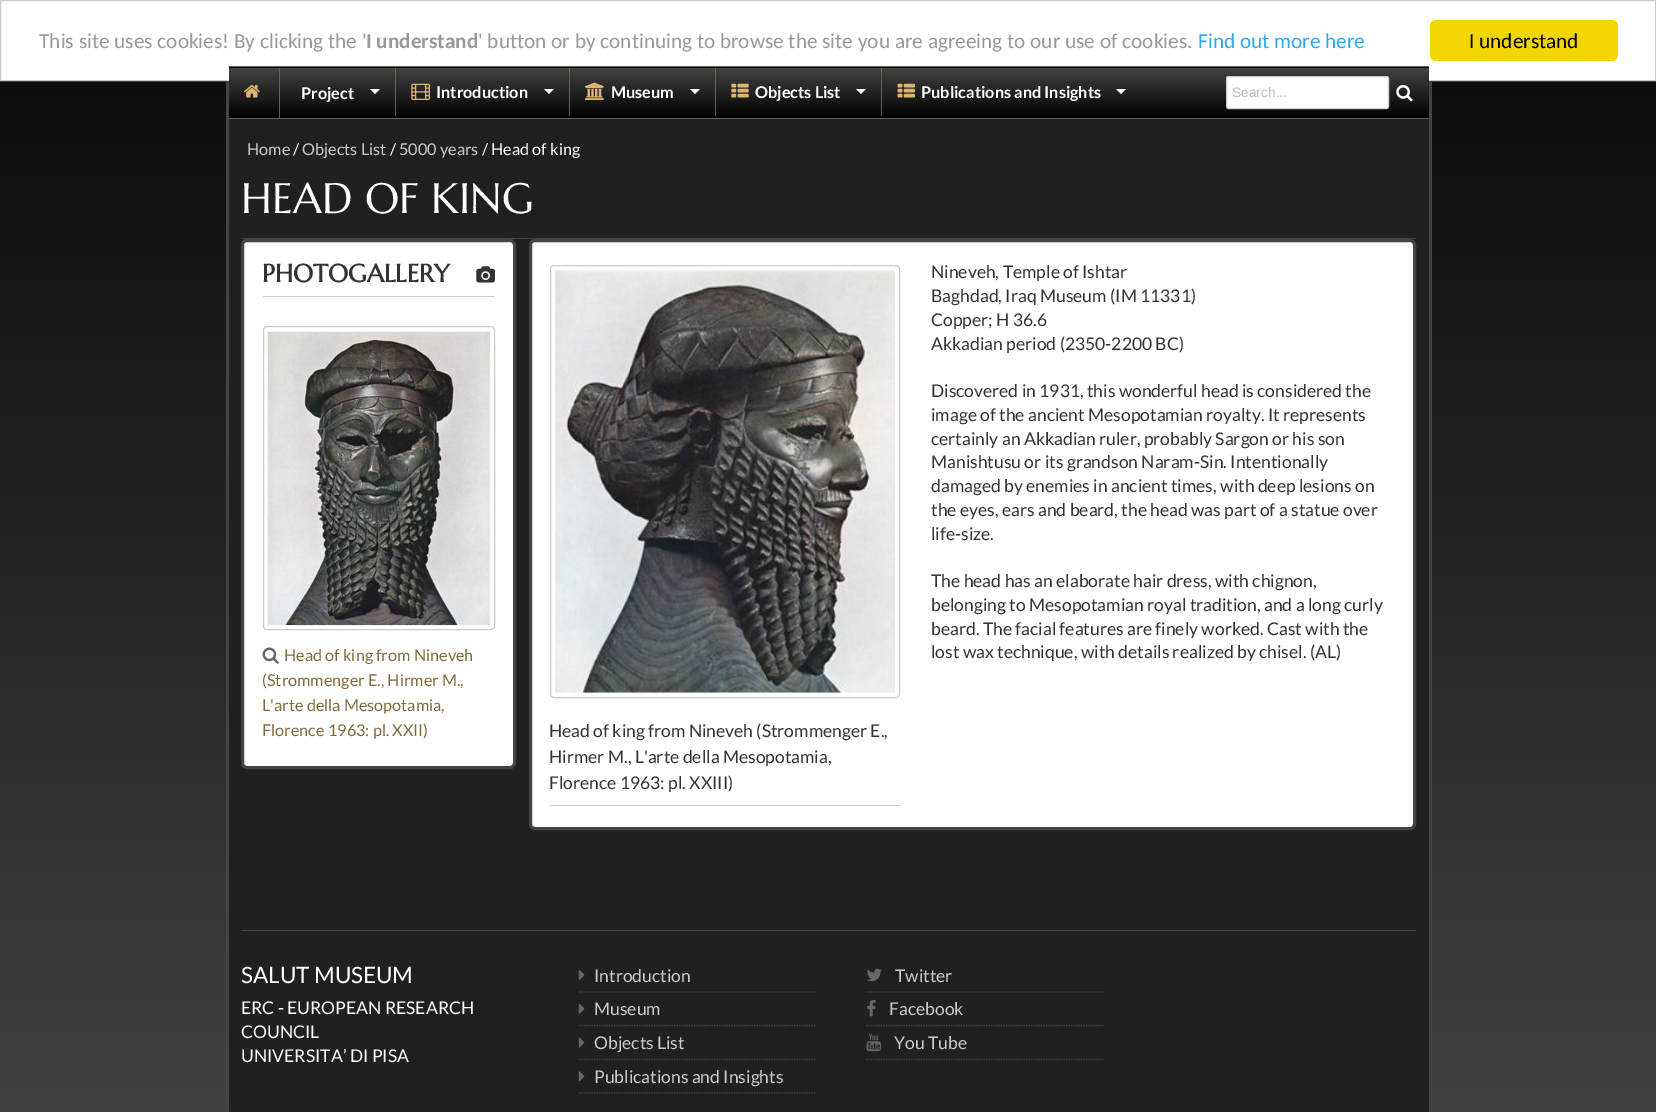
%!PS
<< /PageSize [1656 1112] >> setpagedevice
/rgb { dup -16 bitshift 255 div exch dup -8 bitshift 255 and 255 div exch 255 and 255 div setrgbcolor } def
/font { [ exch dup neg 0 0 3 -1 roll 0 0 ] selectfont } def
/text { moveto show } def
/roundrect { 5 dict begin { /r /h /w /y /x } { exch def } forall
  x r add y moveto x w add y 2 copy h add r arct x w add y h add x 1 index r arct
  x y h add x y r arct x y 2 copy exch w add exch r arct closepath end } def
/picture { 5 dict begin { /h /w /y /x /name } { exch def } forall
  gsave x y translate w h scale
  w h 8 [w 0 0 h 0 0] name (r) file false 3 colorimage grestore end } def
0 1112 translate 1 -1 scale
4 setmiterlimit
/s1 { /Carlito-Regular 21.25 font 16#999999 rgb } def
/s2 { /Carlito-Bold 21.25 font 16#999999 rgb } def
/s3 { /Carlito-Regular 21.25 font 16#31A8F0 rgb } def
/s4 { /Carlito-Regular 21.25 font 16#000000 rgb } def
/s5 { /Lato-Bold 16.25 font 16#FFFFFF rgb } def
/s6 { /LiberationSans-Regular 13.75 font 16#BBBBBB rgb } def
/s7 { /Lato-Regular 16.25 font 16#CCCCCC rgb } def
/s8 { /Lato-Regular 16.25 font 16#FFFFFF rgb } def
/s9 { /MarcellusSC-Regular 42.5 font 16#FFFFFF rgb } def
/s10 { /MarcellusSC-Bold 25 font 16#333333 rgb } def
/s11 { /Lato-Regular 16.25 font 16#836A3E rgb } def
/s12 { /Lato-Regular 17.5 font 16#333333 rgb } def
/s13 { /Lato-Regular 22.5 font 16#FFFFFF rgb } def
/s14 { /Lato-Regular 17.5 font 16#FFFFFF rgb } def
/s15 { /Lato-Regular 17.5 font 16#CCCCCC rgb } def
16#FFFFFF rgb
0 0 1656 1112 rectfill
gsave 0 81 moveto 1656 81 lineto 1656 1112 lineto 0 1112 lineto closepath clip newpath
<< /ShadingType 2 /ColorSpace /DeviceRGB /Coords [828 -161 828 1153] /Extend [true true] /Function << /FunctionType 2 /Domain [0 1] /C0 [0 0 0] /C1 [0.267 0.267 0.267] /N 1 >> >> shfill grestore
16#CCCCCC rgb
0.5 0.5 1655 80 rectstroke
s1
(This site uses cookies! By clicking the ') 39 48 text
s2
(I understand) 366 48 text
s1
(' button or by continuing to browse the site you are agreeing to our use of cookies.) 478 48 text
s3
(Find out more here) 1198 48 text
16#F1D600 rgb
1430 20 188 41 6 roundrect fill
s4
(I understand) 1469 48 text
16#202020 rgb
229 119 1200 993 rectfill
16#444444 rgb
1429 81 3 1031 rectfill
226 81 3 1031 rectfill
gsave 229 67 moveto 1429 67 lineto 1429 68 lineto 229 68 lineto closepath clip newpath
<< /ShadingType 2 /ColorSpace /DeviceRGB /Coords [829 17 829 68] /Extend [true true] /Function << /FunctionType 2 /Domain [0 1] /C0 [0.267 0.263 0.263] /C1 [0 0 0] /N 1 >> >> shfill grestore
gsave 229 68 moveto 1429 68 lineto 1429 118 lineto 229 118 lineto closepath clip newpath
<< /ShadingType 2 /ColorSpace /DeviceRGB /Coords [829 67 829 118] /Extend [true true] /Function << /FunctionType 2 /Domain [0 1] /C0 [0.267 0.263 0.263] /C1 [0 0 0] /N 1 >> >> shfill grestore
16#6D6049 rgb
229 66 1200 1 rectfill
229 118 1200 1 rectfill
(pic1.raw) 244 85 16 13 picture
279 68 1 50 rectfill
s5
(Project) 301 99 text
370 89 moveto 380 89 lineto 375 94 lineto closepath fill
16#6D6049 rgb
395 68 1 48 rectfill
(pic2.raw) 411 83 19 17 picture
s5
(Introduction) 436 98 text
544 89 moveto 554 89 lineto 549 94 lineto closepath fill
16#6D6049 rgb
569 68 1 48 rectfill
(pic3.raw) 585 82 19 18 picture
s5
(Museum) 611 98 text
690 89 moveto 700 89 lineto 695 94 lineto closepath fill
16#6D6049 rgb
715 68 1 48 rectfill
(pic4.raw) 731 83 18 15 picture
s5
(Objects List) 755 98 text
856 89 moveto 866 89 lineto 861 94 lineto closepath fill
16#6D6049 rgb
881 68 1 48 rectfill
(pic5.raw) 897 83 18 15 picture
s5
(Publications and Insights) 921 98 text
1116 89 moveto 1126 89 lineto 1121 94 lineto closepath fill
1226.5 76.5 162 32 2 roundrect gsave fill grestore
16#CCCCCC rgb
stroke
s6
(Search...) 1232 97 text
(pic6.raw) 1396 85 17 17 picture
s7
(Home) 247 155 text
s8
(/) 293 155 text
s7
(Objects List) 302 155 text
s8
(/) 390 155 text
s7
(5000 years) 399 155 text
s8
(/ Head of king) 482 155 text
16#444444 rgb
241 238 1175 1 rectfill
s9
(HEAD OF KING) 241 213 text
242.5 240.5 272 527 4.5 roundrect gsave fill grestore
16#444444 rgb
3 setlinewidth
stroke
16#CCCCCC rgb
263 296 232 1 rectfill
s10
(PHOTOGALLERY) 262 282 text
(pic7.raw) 476 266 19 17 picture
16#CCCCCC rgb
1 setlinewidth
263.5 326.5 231 303 3.5 roundrect stroke
(pic8.raw) 267 331 223 295 picture
(pic9.raw) 262 647 17 17 picture
s11
(Head of king from Nineveh) 284 661 text
(\(Strommenger E., Hirmer M.,) 262 686 text
(L'arte della Mesopotamia,) 262 711 text
(Florence 1963: pl. XXII\)) 262 736 text
16#FFFFFF rgb
530.5 240.5 884 588 4.5 roundrect gsave fill grestore
16#444444 rgb
3 setlinewidth
stroke
s12
(Nineveh, Temple of Ishtar) 931 278 text
(Baghdad, Iraq Museum \(IM 11331\)) 931 302 text
(Copper; H 36.6) 931 326 text
(Akkadian period \(2350-2200 BC\)) 931 350 text
(Discovered in 1931, this wonderful head is considered the) 931 397 text
(image of the ancient Mesopotamian royalty. It represents) 931 421 text
(certainly an Akkadian ruler, probably Sargon or his son) 931 445 text
(Manishtusu or its grandson Naram-Sin. Intentionally) 931 468 text
(damaged by enemies in ancient times, with deep lesions on) 931 492 text
(the eyes, ears and beard, the head was part of a statue over) 931 516 text
(life-size.) 931 540 text
(The head has an elaborate hair dress, with chignon,) 931 587 text
(belonging to Mesopotamian royal tradition, and a long curly) 931 611 text
(beard. The facial features are finely worked. Cast with the) 931 635 text
(lost wax technique, with details realized by chisel. \(AL\)) 931 658 text
16#CCCCCC rgb
1 setlinewidth
550.5 265.5 349 432 3.5 roundrect stroke
(pic10.raw) 555 270 340 423 picture
550 805 350 1 rectfill
s12
(Head of king from Nineveh \(Strommenger E.,) 549 737 text
(Hirmer M., L'arte della Mesopotamia,) 549 763 text
(Florence 1963: pl. XXIII\)) 549 789 text
16#444444 rgb
241 930 1175 1 rectfill
s13
(SALUT MUSEUM) 241 983 text
s14
(ERC - EUROPEAN RESEARCH) 241 1014 text
(COUNCIL) 241 1038 text
(UNIVERSITA’ DI PISA) 241 1062 text
16#444444 rgb
1.2 setlinewidth
[1.25 1.25] 0 setdash
579 992 moveto 816 992 lineto stroke
(pic11.raw) 578 970 7 10 picture
s15
(Introduction) 594 982 text
16#444444 rgb
579 1025.5 moveto 816 1025.5 lineto stroke
(pic12.raw) 578 1003 7 11 picture
s15
(Museum) 594 1015 text
16#444444 rgb
579 1059.5 moveto 816 1059.5 lineto stroke
(pic13.raw) 578 1037 7 11 picture
s15
(Objects List) 594 1049 text
16#444444 rgb
579 1093 moveto 816 1093 lineto stroke
(pic14.raw) 578 1071 7 11 picture
s15
(Publications and Insights) 594 1083 text
16#444444 rgb
866 992 moveto 1104 992 lineto stroke
(pic15.raw) 867 968 15 14 picture
s15
(Twitter) 895 982 text
16#444444 rgb
866 1025.5 moveto 1104 1025.5 lineto stroke
(pic16.raw) 867 1000 9 17 picture
s15
(Facebook) 889 1015 text
16#444444 rgb
866 1059.5 moveto 1104 1059.5 lineto stroke
(pic17.raw) 866 1033 15 19 picture
s15
(You Tube) 894 1049 text
showpage
